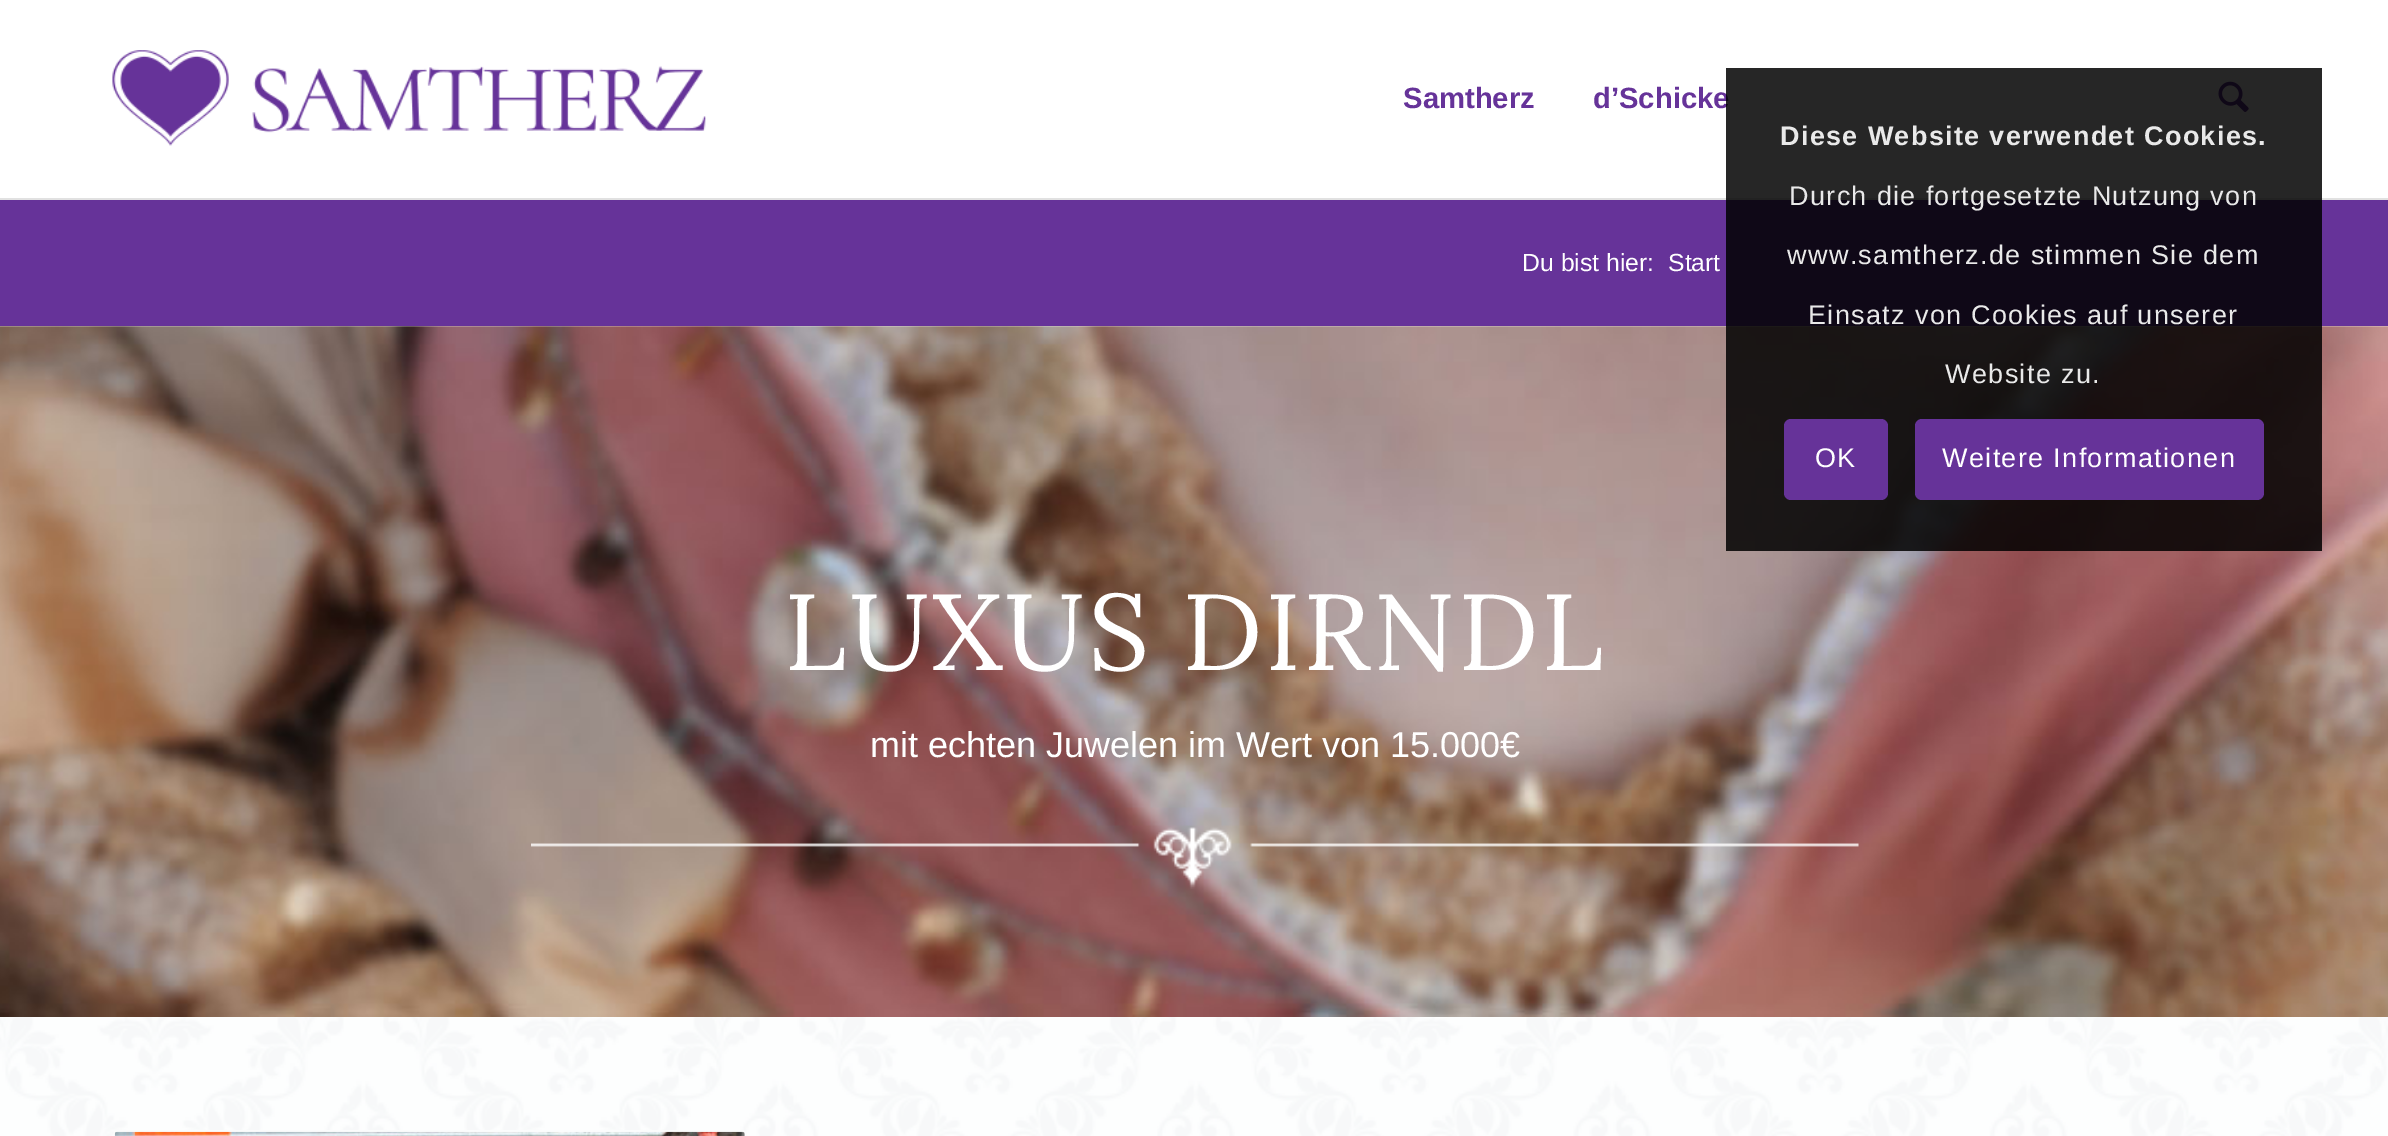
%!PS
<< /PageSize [2388 1136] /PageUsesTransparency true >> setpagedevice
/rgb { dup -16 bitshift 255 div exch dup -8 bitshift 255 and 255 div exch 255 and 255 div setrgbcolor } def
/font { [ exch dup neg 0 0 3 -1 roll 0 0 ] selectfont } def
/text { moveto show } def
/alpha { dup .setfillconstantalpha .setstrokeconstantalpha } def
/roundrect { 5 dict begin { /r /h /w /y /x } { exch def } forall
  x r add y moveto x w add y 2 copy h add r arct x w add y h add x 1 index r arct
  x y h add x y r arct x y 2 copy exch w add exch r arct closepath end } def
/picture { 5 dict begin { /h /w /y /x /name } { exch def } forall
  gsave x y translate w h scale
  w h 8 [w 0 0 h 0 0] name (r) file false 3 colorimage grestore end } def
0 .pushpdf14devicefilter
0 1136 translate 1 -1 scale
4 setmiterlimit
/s1 { /LiberationSans-Bold 29.25 font 16#663399 rgb } def
/s2 { /LiberationSans-Regular 24.75 font 16#FFFFFF rgb } def
/s3 { /LiberationSans-Regular 36 font 16#FFFFFF rgb } def
16#FFFFFF rgb
0 0 2388 1136 rectfill
16#E1E1E1 rgb
0 198 2388 2 rectfill
(pic1.raw) 112 50 594 96 picture
s1
(Samtherz) 1403 108 text
(d’Schicke) 1593 108 text
(pic2.raw) 2218 81 31 31 picture
0 200 2388 126 rectfill
s2
(Du bist hier:) 1522 271 text
(Start) 1668 271 text
(pic3.raw) 0 326 2388 691 picture
(pic4.raw) 531 827 1328 62 picture
/Lora-Regular 108 font
784 670 moveto 2.25 0 (LUXUS DIRNDL) ashow
s3
(mit echten Juwelen im Wert von 15.000€) 870 757 text
(pic5.raw) 0 1017 2388 119 picture
16#FBFCFC rgb
2 setlinewidth
118 1131 moveto 742 1131 lineto 744 1131 746 1133 746 1135 curveto 746 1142 lineto 114 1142 lineto 114 1135 lineto 114 1133 116 1131 118 1131 curveto closepath stroke
16#FFFFFF rgb
117 1132 moveto 743 1132 lineto 744 1132 745 1133 745 1134 curveto 745 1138 lineto 115 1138 lineto 115 1134 lineto 115 1133 116 1132 117 1132 curveto closepath fill
(pic6.raw) 114 1131 631 5 picture
0.85 alpha
16#000000 rgb
1726 68 596 483 rectfill
/LiberationSans-Bold 27 font
1 alpha
16#E9E9E9 rgb
1780 145 moveto 1.35 0 (Diese Website verwendet Cookies.) ashow
/LiberationSans-Regular 27 font
1789 205 moveto 1.35 0 (Durch die fortgesetzte Nutzung von) ashow
1787 264 moveto 1.35 0 (www.samtherz.de stimmen Sie dem) ashow
1808 324 moveto 1.35 0 (Einsatz von Cookies auf unserer) ashow
1945 383 moveto 1.35 0 (Website zu.) ashow
16#663399 rgb
1784 419 104 81 7 roundrect fill
16#FFFFFF rgb
1815 467 moveto 1.35 0 (OK) ashow
16#663399 rgb
1915 419 349 81 7 roundrect fill
16#FFFFFF rgb
1942 467 moveto 1.35 0 (Weitere Informationen) ashow
.poppdf14devicefilter showpage
